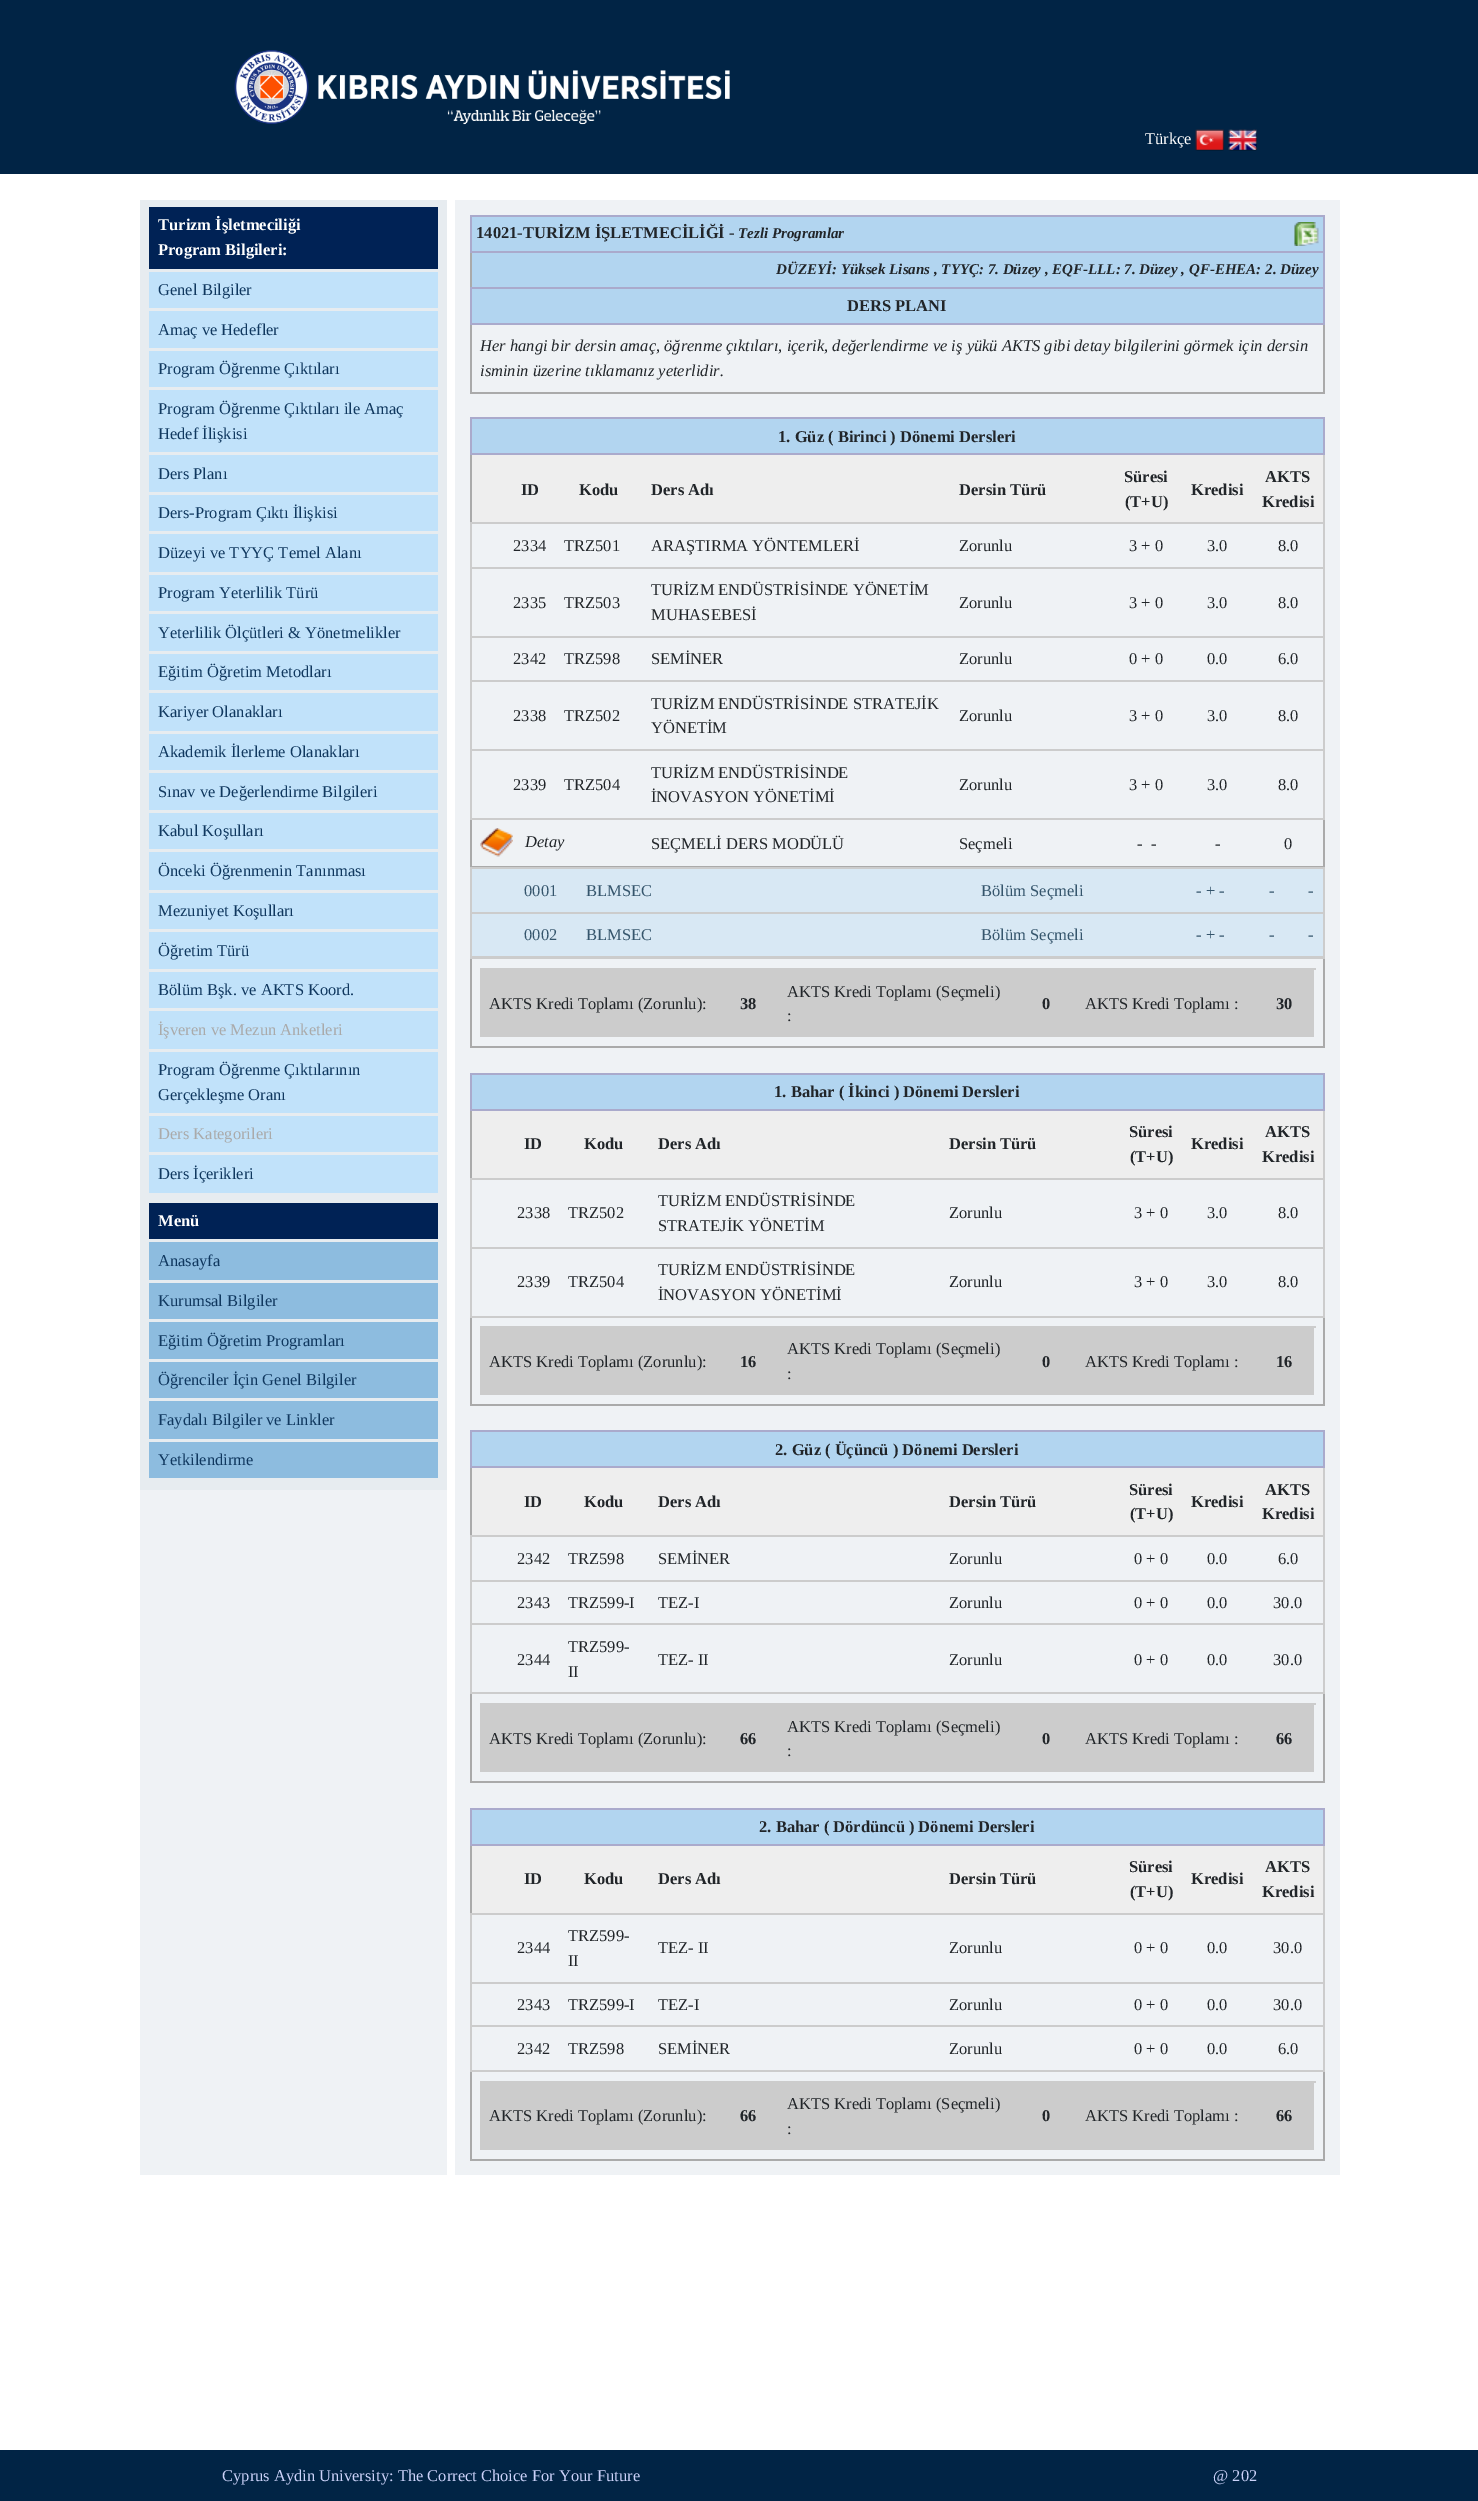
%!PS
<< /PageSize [1478 2501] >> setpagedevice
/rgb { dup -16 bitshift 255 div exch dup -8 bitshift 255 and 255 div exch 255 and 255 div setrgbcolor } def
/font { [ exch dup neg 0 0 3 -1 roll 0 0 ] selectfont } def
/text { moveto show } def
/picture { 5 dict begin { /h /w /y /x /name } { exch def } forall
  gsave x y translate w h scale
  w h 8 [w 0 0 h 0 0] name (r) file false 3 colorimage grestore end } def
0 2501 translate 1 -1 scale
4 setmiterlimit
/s1 { /LiberationSerif-Regular 16.5 font 16#FFFFFF rgb } def
/s2 { /LiberationSerif-Bold 16.5 font 16#FFFFFF rgb } def
/s3 { /LiberationSerif-Regular 16.5 font 16#10385F rgb } def
/s4 { /LiberationSerif-Regular 16.5 font 16#AAAAAA rgb } def
/s5 { /LiberationSerif-Bold 16.5 font 16#212529 rgb } def
/s6 { /LiberationSerif-BoldItalic 15 font 16#212529 rgb } def
/s7 { /LiberationSerif-Italic 16.5 font 16#212529 rgb } def
/s8 { /LiberationSerif-Regular 16.5 font 16#212529 rgb } def
/s9 { /LiberationSerif-Regular 16.5 font 16#35556C rgb } def
/s10 { /LiberationSerif-Regular 16.5 font 16#CBD2F9 rgb } def
16#FFFFFF rgb
0 0 1478 2501 rectfill
16#012445 rgb
0 0 1478 174 rectfill
(pic1.raw) 234 50 496 75 picture
s1
(Türkçe) 1145 144 text
(pic2.raw) 1195 129 29 22 picture
(pic3.raw) 1228 129 29 22 picture
16#EFF2F5 rgb
140 1490 307 685 rectfill
16#E7ECF0 rgb
140 200 307 1290 rectfill
16#002255 rgb
149 207 289 62 rectfill
s2
(Turizm İşletmeciliği) 158 230 text
(Program Bilgileri:) 158 255 text
16#C1E2FA rgb
149 272 289 36 rectfill
s3
(Genel Bilgiler) 158 295 text
16#C1E2FA rgb
149 311 289 37 rectfill
s3
(Amaç ve Hedefler) 158 335 text
16#C1E2FA rgb
149 351 289 36 rectfill
s3
(Program Öğrenme Çıktıları) 158 374 text
16#C1E2FA rgb
149 390 289 62 rectfill
s3
(Program Öğrenme Çıktıları ile Amaç) 158 414 text
(Hedef İlişkisi) 158 439 text
16#C1E2FA rgb
149 455 289 37 rectfill
s3
(Ders Planı) 158 479 text
16#C1E2FA rgb
149 495 289 36 rectfill
s3
(Ders-Program Çıktı İlişkisi) 158 518 text
16#C1E2FA rgb
149 534 289 38 rectfill
s3
(Düzeyi ve TYYÇ Temel Alanı) 158 558 text
16#C1E2FA rgb
149 575 289 36 rectfill
s3
(Program Yeterlilik Türü) 158 598 text
16#C1E2FA rgb
149 614 289 37 rectfill
s3
(Yeterlilik Ölçütleri & Yönetmelikler) 158 638 text
16#C1E2FA rgb
149 654 289 36 rectfill
s3
(Eğitim Öğretim Metodları) 158 677 text
16#C1E2FA rgb
149 693 289 38 rectfill
s3
(Kariyer Olanakları) 158 717 text
16#C1E2FA rgb
149 734 289 36 rectfill
s3
(Akademik İlerleme Olanakları) 158 757 text
16#C1E2FA rgb
149 773 289 37 rectfill
s3
(Sınav ve Değerlendirme Bilgileri) 158 797 text
16#C1E2FA rgb
149 813 289 36 rectfill
s3
(Kabul Koşulları) 158 836 text
16#C1E2FA rgb
149 852 289 38 rectfill
s3
(Önceki Öğrenmenin Tanınması) 158 876 text
16#C1E2FA rgb
149 893 289 36 rectfill
s3
(Mezuniyet Koşulları) 158 916 text
16#C1E2FA rgb
149 932 289 37 rectfill
s3
(Öğretim Türü) 158 956 text
16#C1E2FA rgb
149 972 289 36 rectfill
s3
(Bölüm Bşk. ve AKTS Koord.) 158 995 text
16#C1E2FA rgb
149 1011 289 38 rectfill
s4
(İşveren ve Mezun Anketleri) 158 1035 text
16#C1E2FA rgb
149 1052 289 61 rectfill
s3
(Program Öğrenme Çıktılarının) 158 1075 text
(Gerçekleşme Oranı) 158 1100 text
16#C1E2FA rgb
149 1116 289 36 rectfill
s4
(Ders Kategorileri) 158 1139 text
16#C1E2FA rgb
149 1155 289 38 rectfill
s3
(Ders İçerikleri) 158 1179 text
16#002255 rgb
149 1203 289 36 rectfill
s2
(Menü) 158 1226 text
16#8DBCDF rgb
149 1242 289 38 rectfill
s3
(Anasayfa) 158 1266 text
16#8DBCDF rgb
149 1283 289 36 rectfill
s3
(Kurumsal Bilgiler) 158 1306 text
16#8DBCDF rgb
149 1322 289 37 rectfill
s3
(Eğitim Öğretim Programları) 158 1346 text
16#8DBCDF rgb
149 1362 289 36 rectfill
s3
(Öğrenciler İçin Genel Bilgiler) 158 1385 text
16#8DBCDF rgb
149 1401 289 38 rectfill
s3
(Faydalı Bilgiler ve Linkler) 158 1425 text
16#8DBCDF rgb
149 1442 289 36 rectfill
s3
(Yetkilendirme) 158 1465 text
16#EFF2F5 rgb
455 200 885 1975 rectfill
16#AAAAAA rgb
1323 325 2 68 rectfill
470 392 855 2 rectfill
470 253 2 140 rectfill
16#B2D5F0 rgb
472 217 851 34 rectfill
16#AAAACC rgb
470 215 855 2 rectfill
470 251 855 2 rectfill
470 287 855 2 rectfill
1323 287 2 37 rectfill
1323 251 2 37 rectfill
1323 215 2 37 rectfill
470 215 2 37 rectfill
s5
(14021-TURİZM İŞLETMECİLİĞİ -) 476 238 text
s6
(Tezli Programlar) 738 238 text
(pic4.raw) 1294 222 25 24 picture
16#B2D5F0 rgb
472 253 851 34 rectfill
s6
(DÜZEYİ: Yüksek Lisans , TYYÇ: 7. Düzey , EQF-LLL: 7. Düzey , QF-EHEA: 2. Düzey) 776 274 text
16#B2D5F0 rgb
472 289 851 34 rectfill
16#AAAACC rgb
470 323 855 2 rectfill
470 287 2 37 rectfill
s5
(DERS PLANI) 847 311 text
s7
(Her hangi bir dersin amaç, öğrenme çıktıları, içerik, değerlendirme ve iş yükü AKTS gibi detay bilgilerini görmek için dersin) 480 351 text
(isminin üzerine tıklamanız yeterlidir.) 480 376 text
16#AAAAAA rgb
1323 820 2 47 rectfill
470 866 855 1 rectfill
470 455 2 412 rectfill
16#B2D5F0 rgb
472 419 851 34 rectfill
16#AAAACC rgb
470 417 855 2 rectfill
16#CCCCCC rgb
470 522 855 2 rectfill
470 567 855 2 rectfill
470 636 855 2 rectfill
470 680 855 2 rectfill
470 749 855 2 rectfill
1323 749 2 70 rectfill
1323 680 2 70 rectfill
1323 636 2 45 rectfill
1323 567 2 71 rectfill
1323 453 2 116 rectfill
16#AAAACC rgb
1323 417 2 38 rectfill
470 453 855 2 rectfill
470 417 2 38 rectfill
s5
(1. Güz \( Birinci \) Dönemi Dersleri) 778 442 text
16#EEEEEE rgb
472 455 851 67 rectfill
s5
(ID) 521 495 text
(Kodu) 579 495 text
(Ders Adı) 651 495 text
(Dersin Türü) 959 495 text
(Süresi) 1124 482 text
(\(T+U\)) 1125 507 text
(Kredisi) 1191 495 text
(AKTS) 1265 482 text
(Kredisi) 1262 507 text
16#CCCCCC rgb
470 818 855 2 rectfill
470 749 2 70 rectfill
470 680 2 70 rectfill
470 636 2 45 rectfill
470 567 2 71 rectfill
470 522 2 47 rectfill
s8
(2334) 513 551 text
(TRZ501) 564 551 text
(ARAŞTIRMA YÖNTEMLERİ) 651 551 text
(Zorunlu) 959 551 text
(3 + 0) 1129 551 text
(3.0) 1207 551 text
(8.0) 1278 551 text
(2335) 513 608 text
(TRZ503) 564 608 text
(TURİZM ENDÜSTRİSİNDE YÖNETİM) 651 595 text
(MUHASEBESİ) 651 620 text
(Zorunlu) 959 608 text
(3 + 0) 1129 608 text
(3.0) 1207 608 text
(8.0) 1278 608 text
(2342) 513 664 text
(TRZ598) 564 664 text
(SEMİNER) 651 664 text
(Zorunlu) 959 664 text
(0 + 0) 1129 664 text
(0.0) 1207 664 text
(6.0) 1278 664 text
(2338) 513 721 text
(TRZ502) 564 721 text
(TURİZM ENDÜSTRİSİNDE STRATEJİK) 651 709 text
(YÖNETİM) 651 733 text
(Zorunlu) 959 721 text
(3 + 0) 1129 721 text
(3.0) 1207 721 text
(8.0) 1278 721 text
(2339) 513 790 text
(TRZ504) 564 790 text
(TURİZM ENDÜSTRİSİNDE) 651 778 text
(İNOVASYON YÖNETİMİ) 651 802 text
(Zorunlu) 959 790 text
(3 + 0) 1129 790 text
(3.0) 1207 790 text
(8.0) 1278 790 text
(pic5.raw) 480 828 33 29 picture
s7
(Detay) 525 847 text
s8
(SEÇMELİ DERS MODÜLÜ) 651 849 text
(Seçmeli) 959 849 text
(-  -) 1137 849 text
(-) 1215 849 text
(0) 1284 849 text
16#D8E8F4 rgb
472 869 851 43 rectfill
16#CCCCCC rgb
470 867 855 2 rectfill
470 912 855 2 rectfill
1323 912 2 45 rectfill
1323 867 2 47 rectfill
470 956 855 1 rectfill
470 912 2 45 rectfill
470 867 2 47 rectfill
s9
(0001) 524 896 text
(BLMSEC) 586 896 text
(Bölüm Seçmeli) 981 896 text
(- + -) 1196 896 text
(-) 1269 896 text
(-) 1308 896 text
16#D8E8F4 rgb
472 914 851 42 rectfill
s9
(0002) 524 940 text
(BLMSEC) 586 940 text
(Bölüm Seçmeli) 981 940 text
(- + -) 1196 940 text
(-) 1269 940 text
(-) 1308 940 text
16#AAAAAA rgb
1323 957 2 90 rectfill
470 1046 855 2 rectfill
470 957 2 90 rectfill
16#CCCCCC rgb
470 957 855 2 rectfill
480 970 834 67 rectfill
s8
(AKTS Kredi Toplamı \(Zorunlu\):) 489 1009 text
s5
(38) 740 1009 text
s8
(AKTS Kredi Toplamı \(Seçmeli\)) 787 997 text
(:) 787 1021 text
s5
(0) 1042 1009 text
s8
(AKTS Kredi Toplamı :) 1085 1009 text
16#CCCCCC rgb
480 968 836 2 rectfill
s5
(30) 1276 1009 text
16#AAAAAA rgb
1323 1318 2 88 rectfill
470 1404 855 2 rectfill
470 1111 2 295 rectfill
16#B2D5F0 rgb
472 1075 851 34 rectfill
16#AAAACC rgb
470 1073 855 2 rectfill
16#CCCCCC rgb
470 1178 855 2 rectfill
470 1247 855 2 rectfill
1323 1247 2 70 rectfill
1323 1109 2 139 rectfill
16#AAAACC rgb
1323 1073 2 37 rectfill
470 1109 855 2 rectfill
470 1073 2 37 rectfill
s5
(1. Bahar \( İkinci \) Dönemi Dersleri) 774 1097 text
16#EEEEEE rgb
472 1111 851 67 rectfill
s5
(ID) 524 1149 text
(Kodu) 584 1149 text
(Ders Adı) 658 1149 text
(Dersin Türü) 949 1149 text
(Süresi) 1129 1137 text
(\(T+U\)) 1130 1162 text
(Kredisi) 1191 1149 text
(AKTS) 1265 1137 text
(Kredisi) 1262 1162 text
16#CCCCCC rgb
470 1316 855 2 rectfill
470 1247 2 70 rectfill
470 1178 2 70 rectfill
s8
(2338) 517 1218 text
(TRZ502) 568 1218 text
(TURİZM ENDÜSTRİSİNDE) 658 1206 text
(STRATEJİK YÖNETİM) 658 1231 text
(Zorunlu) 949 1218 text
(3 + 0) 1134 1218 text
(3.0) 1207 1218 text
(8.0) 1278 1218 text
(2339) 517 1287 text
(TRZ504) 568 1287 text
(TURİZM ENDÜSTRİSİNDE) 658 1275 text
(İNOVASYON YÖNETİMİ) 658 1300 text
(Zorunlu) 949 1287 text
(3 + 0) 1134 1287 text
(3.0) 1207 1287 text
(8.0) 1278 1287 text
16#CCCCCC rgb
480 1326 834 69 rectfill
s8
(AKTS Kredi Toplamı \(Zorunlu\):) 489 1367 text
s5
(16) 740 1367 text
s8
(AKTS Kredi Toplamı \(Seçmeli\)) 787 1354 text
(:) 787 1379 text
s5
(0) 1042 1367 text
s8
(AKTS Kredi Toplamı :) 1085 1367 text
16#CCCCCC rgb
1314 1326 2 2 rectfill
s5
(16) 1276 1367 text
16#AAAAAA rgb
1323 1694 2 88 rectfill
470 1781 855 2 rectfill
470 1468 2 314 rectfill
16#B2D5F0 rgb
472 1432 851 34 rectfill
16#AAAACC rgb
470 1430 855 2 rectfill
16#CCCCCC rgb
470 1535 855 2 rectfill
470 1580 855 2 rectfill
470 1623 855 2 rectfill
1323 1623 2 71 rectfill
1323 1580 2 45 rectfill
1323 1466 2 115 rectfill
16#AAAACC rgb
1323 1430 2 37 rectfill
470 1466 855 2 rectfill
470 1430 2 37 rectfill
s5
(2. Güz \( Üçüncü \) Dönemi Dersleri) 775 1455 text
16#EEEEEE rgb
472 1468 851 67 rectfill
s5
(ID) 524 1507 text
(Kodu) 584 1507 text
(Ders Adı) 658 1507 text
(Dersin Türü) 949 1507 text
(Süresi) 1129 1495 text
(\(T+U\)) 1130 1519 text
(Kredisi) 1191 1507 text
(AKTS) 1265 1495 text
(Kredisi) 1262 1519 text
16#CCCCCC rgb
470 1692 855 2 rectfill
470 1623 2 71 rectfill
470 1580 2 45 rectfill
470 1535 2 46 rectfill
s8
(2342) 517 1564 text
(TRZ598) 568 1564 text
(SEMİNER) 658 1564 text
(Zorunlu) 949 1564 text
(0 + 0) 1134 1564 text
(0.0) 1207 1564 text
(6.0) 1278 1564 text
(2343) 517 1608 text
(TRZ599-I) 568 1608 text
(TEZ-I) 658 1608 text
(Zorunlu) 949 1608 text
(0 + 0) 1134 1608 text
(0.0) 1207 1608 text
(30.0) 1273 1608 text
(2344) 517 1665 text
(TRZ599-) 568 1652 text
(II) 568 1677 text
(TEZ- II) 658 1665 text
(Zorunlu) 949 1665 text
(0 + 0) 1134 1665 text
(0.0) 1207 1665 text
(30.0) 1273 1665 text
16#CCCCCC rgb
480 1705 834 67 rectfill
s8
(AKTS Kredi Toplamı \(Zorunlu\):) 489 1744 text
s5
(66) 740 1744 text
s8
(AKTS Kredi Toplamı \(Seçmeli\)) 787 1732 text
(:) 787 1756 text
s5
(0) 1042 1744 text
s8
(AKTS Kredi Toplamı :) 1085 1744 text
16#CCCCCC rgb
480 1703 836 2 rectfill
s5
(66) 1276 1744 text
16#AAAAAA rgb
1323 2072 2 88 rectfill
470 2159 855 2 rectfill
470 1846 2 314 rectfill
16#B2D5F0 rgb
472 1810 851 34 rectfill
16#AAAACC rgb
470 1808 855 2 rectfill
16#CCCCCC rgb
470 1913 855 2 rectfill
470 1982 855 2 rectfill
470 2025 855 2 rectfill
1323 2025 2 47 rectfill
1323 1982 2 45 rectfill
1323 1844 2 139 rectfill
16#AAAACC rgb
1323 1808 2 37 rectfill
470 1844 855 2 rectfill
470 1808 2 37 rectfill
s5
(2. Bahar \( Dördüncü \) Dönemi Dersleri) 759 1832 text
16#EEEEEE rgb
472 1846 851 67 rectfill
s5
(ID) 524 1884 text
(Kodu) 584 1884 text
(Ders Adı) 658 1884 text
(Dersin Türü) 949 1884 text
(Süresi) 1129 1872 text
(\(T+U\)) 1130 1897 text
(Kredisi) 1191 1884 text
(AKTS) 1265 1872 text
(Kredisi) 1262 1897 text
16#CCCCCC rgb
470 2070 855 2 rectfill
470 2025 2 47 rectfill
470 1982 2 45 rectfill
470 1913 2 70 rectfill
s8
(2344) 517 1953 text
(TRZ599-) 568 1941 text
(II) 568 1966 text
(TEZ- II) 658 1953 text
(Zorunlu) 949 1953 text
(0 + 0) 1134 1953 text
(0.0) 1207 1953 text
(30.0) 1273 1953 text
(2343) 517 2010 text
(TRZ599-I) 568 2010 text
(TEZ-I) 658 2010 text
(Zorunlu) 949 2010 text
(0 + 0) 1134 2010 text
(0.0) 1207 2010 text
(30.0) 1273 2010 text
(2342) 517 2054 text
(TRZ598) 568 2054 text
(SEMİNER) 658 2054 text
(Zorunlu) 949 2054 text
(0 + 0) 1134 2054 text
(0.0) 1207 2054 text
(6.0) 1278 2054 text
16#CCCCCC rgb
480 2081 834 69 rectfill
s8
(AKTS Kredi Toplamı \(Zorunlu\):) 489 2121 text
s5
(66) 740 2121 text
s8
(AKTS Kredi Toplamı \(Seçmeli\)) 787 2109 text
(:) 787 2134 text
s5
(0) 1042 2121 text
s8
(AKTS Kredi Toplamı :) 1085 2121 text
16#CCCCCC rgb
1314 2081 2 2 rectfill
s5
(66) 1276 2121 text
16#012445 rgb
0 2450 1478 51 rectfill
s10
(Cyprus Aydin University: The Correct Choice For Your Future) 222 2481 text
(@ 202) 1213 2481 text
showpage
